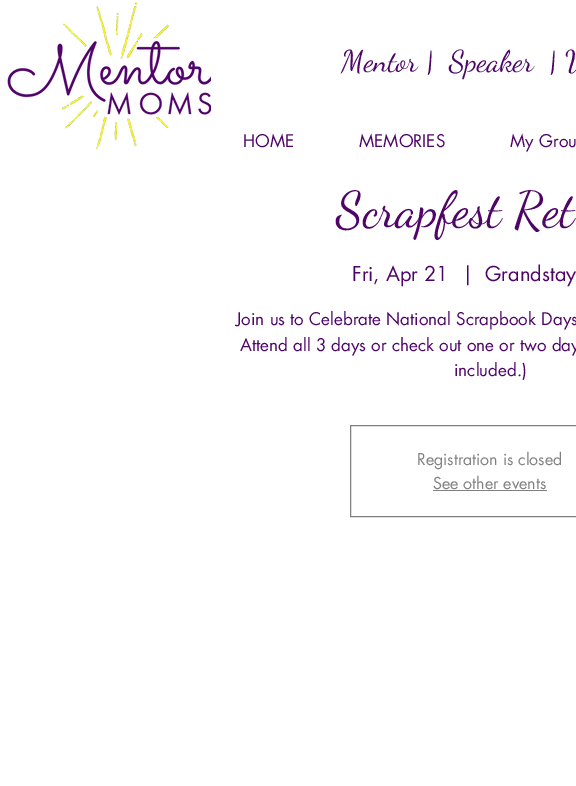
%!PS
<< /PageSize [576 786] >> setpagedevice
/rgb { dup -16 bitshift 255 div exch dup -8 bitshift 255 and 255 div exch 255 and 255 div setrgbcolor } def
/font { [ exch dup neg 0 0 3 -1 roll 0 0 ] selectfont } def
/text { moveto show } def
/picture { 5 dict begin { /h /w /y /x /name } { exch def } forall
  gsave x y translate w h scale
  w h 8 [w 0 0 h 0 0] name (r) file false 3 colorimage grestore end } def
0 786 translate 1 -1 scale
4 setmiterlimit
/s1 { /DancingScript-Regular 30 font 16#4F0568 rgb } def
/s2 { /futura-Regular 17 font 16#4F0568 rgb } def
/s3 { /DancingScript-Regular 50 font 16#4F0568 rgb } def
/s4 { /futura-Regular 20 font 16#4F0568 rgb } def
/s5 { /futura-Regular 16 font 16#808080 rgb } def
16#FFFFFF rgb
0 0 576 786 rectfill
(pic1.raw) 7 2 204 148 picture
s1
(Mentor |  Speaker  | W) 341 71 text
s2
(HOME) 243 147 text
(MEMORIES) 359 147 text
(My Grou) 510 147 text
s3
(Scrapfest Ret) 336 226 text
s4
(Fri, Apr 21) 352 281 text
(|) 462 281 text
(Grandstay) 485 281 text
s2
(Join us to Celebrate National Scrapbook Days) 236 325 text
(Attend all 3 days or check out one or two day) 240 351 text
(included.\)) 454 376 text
16#808080 rgb
350.5 425.5 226 91 rectstroke
s5
(Registration is closed) 417 465 text
(See other events) 433 489 text
433 490 114 1 rectfill
showpage
